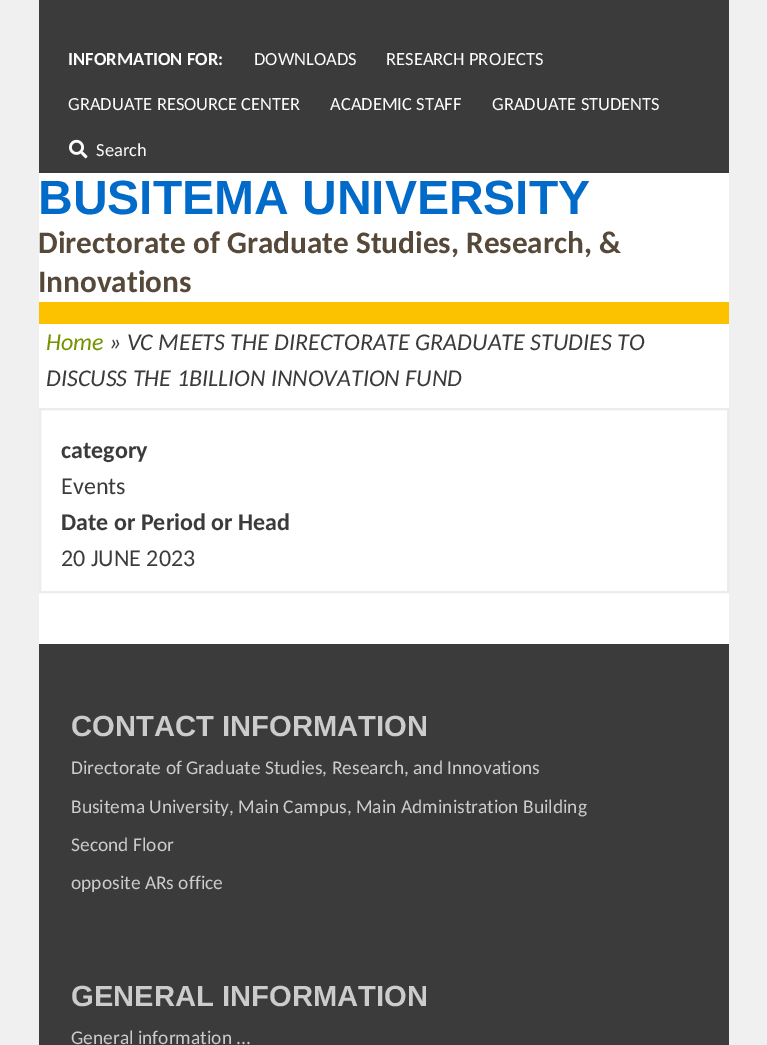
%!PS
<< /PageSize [767 1045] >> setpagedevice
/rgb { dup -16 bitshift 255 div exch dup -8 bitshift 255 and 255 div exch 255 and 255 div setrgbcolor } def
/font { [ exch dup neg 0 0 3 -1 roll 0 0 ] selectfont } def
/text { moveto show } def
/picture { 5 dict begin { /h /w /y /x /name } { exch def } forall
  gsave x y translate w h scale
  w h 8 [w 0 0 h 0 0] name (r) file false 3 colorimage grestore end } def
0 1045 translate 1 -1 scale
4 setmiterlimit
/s1 { /Carlito-Bold 18.5 font 16#FCFCFC rgb } def
/s2 { /Carlito-Regular 18.5 font 16#FCFCFC rgb } def
/s3 { /LiberationSans-Bold 48 font 16#026BCA rgb } def
/s4 { /Carlito-Bold 31.25 font 16#564939 rgb } def
/s5 { /Carlito-Italic 24 font 16#739400 rgb } def
/s6 { /Carlito-Italic 24 font 16#3B3B3B rgb } def
/s7 { /Carlito-Bold 24 font 16#3B3B3B rgb } def
/s8 { /Carlito-Regular 24 font 16#3B3B3B rgb } def
/s9 { /LiberationSans-Bold 29.2 font 16#CCCCCC rgb } def
/s10 { /Carlito-Regular 19.45 font 16#CCCCCC rgb } def
16#F0F0F0 rgb
0 0 767 1045 rectfill
16#FFFFFF rgb
39 173 690 471 rectfill
16#3B3B3B rgb
39 0 690 173 rectfill
s1
(INFORMATION FOR:) 68 65 text
s2
(DOWNLOADS) 254 65 text
(RESEARCH PROJECTS) 386 65 text
(GRADUATE RESOURCE CENTER) 68 110 text
(ACADEMIC STAFF) 330 110 text
(GRADUATE STUDENTS) 492 110 text
(pic1.raw) 69 139 19 20 picture
(Search) 96 156 text
s3
(BUSITEMA UNIVERSITY) 38 214 text
s4
(Directorate of Graduate Studies, Research, &) 38 253 text
(Innovations) 38 292 text
16#FCC200 rgb
39 302 690 22 rectfill
s5
(Home) 46 350 text
s6
(» VC MEETS THE DIRECTORATE GRADUATE STUDIES TO) 109 350 text
(DISCUSS THE 1BILLION INNOVATION FUND) 46 386 text
16#ECECEC rgb
2 setlinewidth
40 409 688 183 rectstroke
s7
(category) 61 458 text
s8
(Events) 61 494 text
s7
(Date or Period or Head) 61 530 text
s8
(20 JUNE 2023) 61 566 text
39 644 690 401 rectfill
s9
(CONTACT INFORMATION) 71 736 text
s10
(Directorate of Graduate Studies, Research, and Innovations) 71 774 text
(Busitema University, Main Campus, Main Administration Building) 71 813 text
(Second Floor) 71 851 text
(opposite ARs office) 71 889 text
s9
(GENERAL INFORMATION) 71 1006 text
s10
(General information ...) 71 1044 text
showpage
